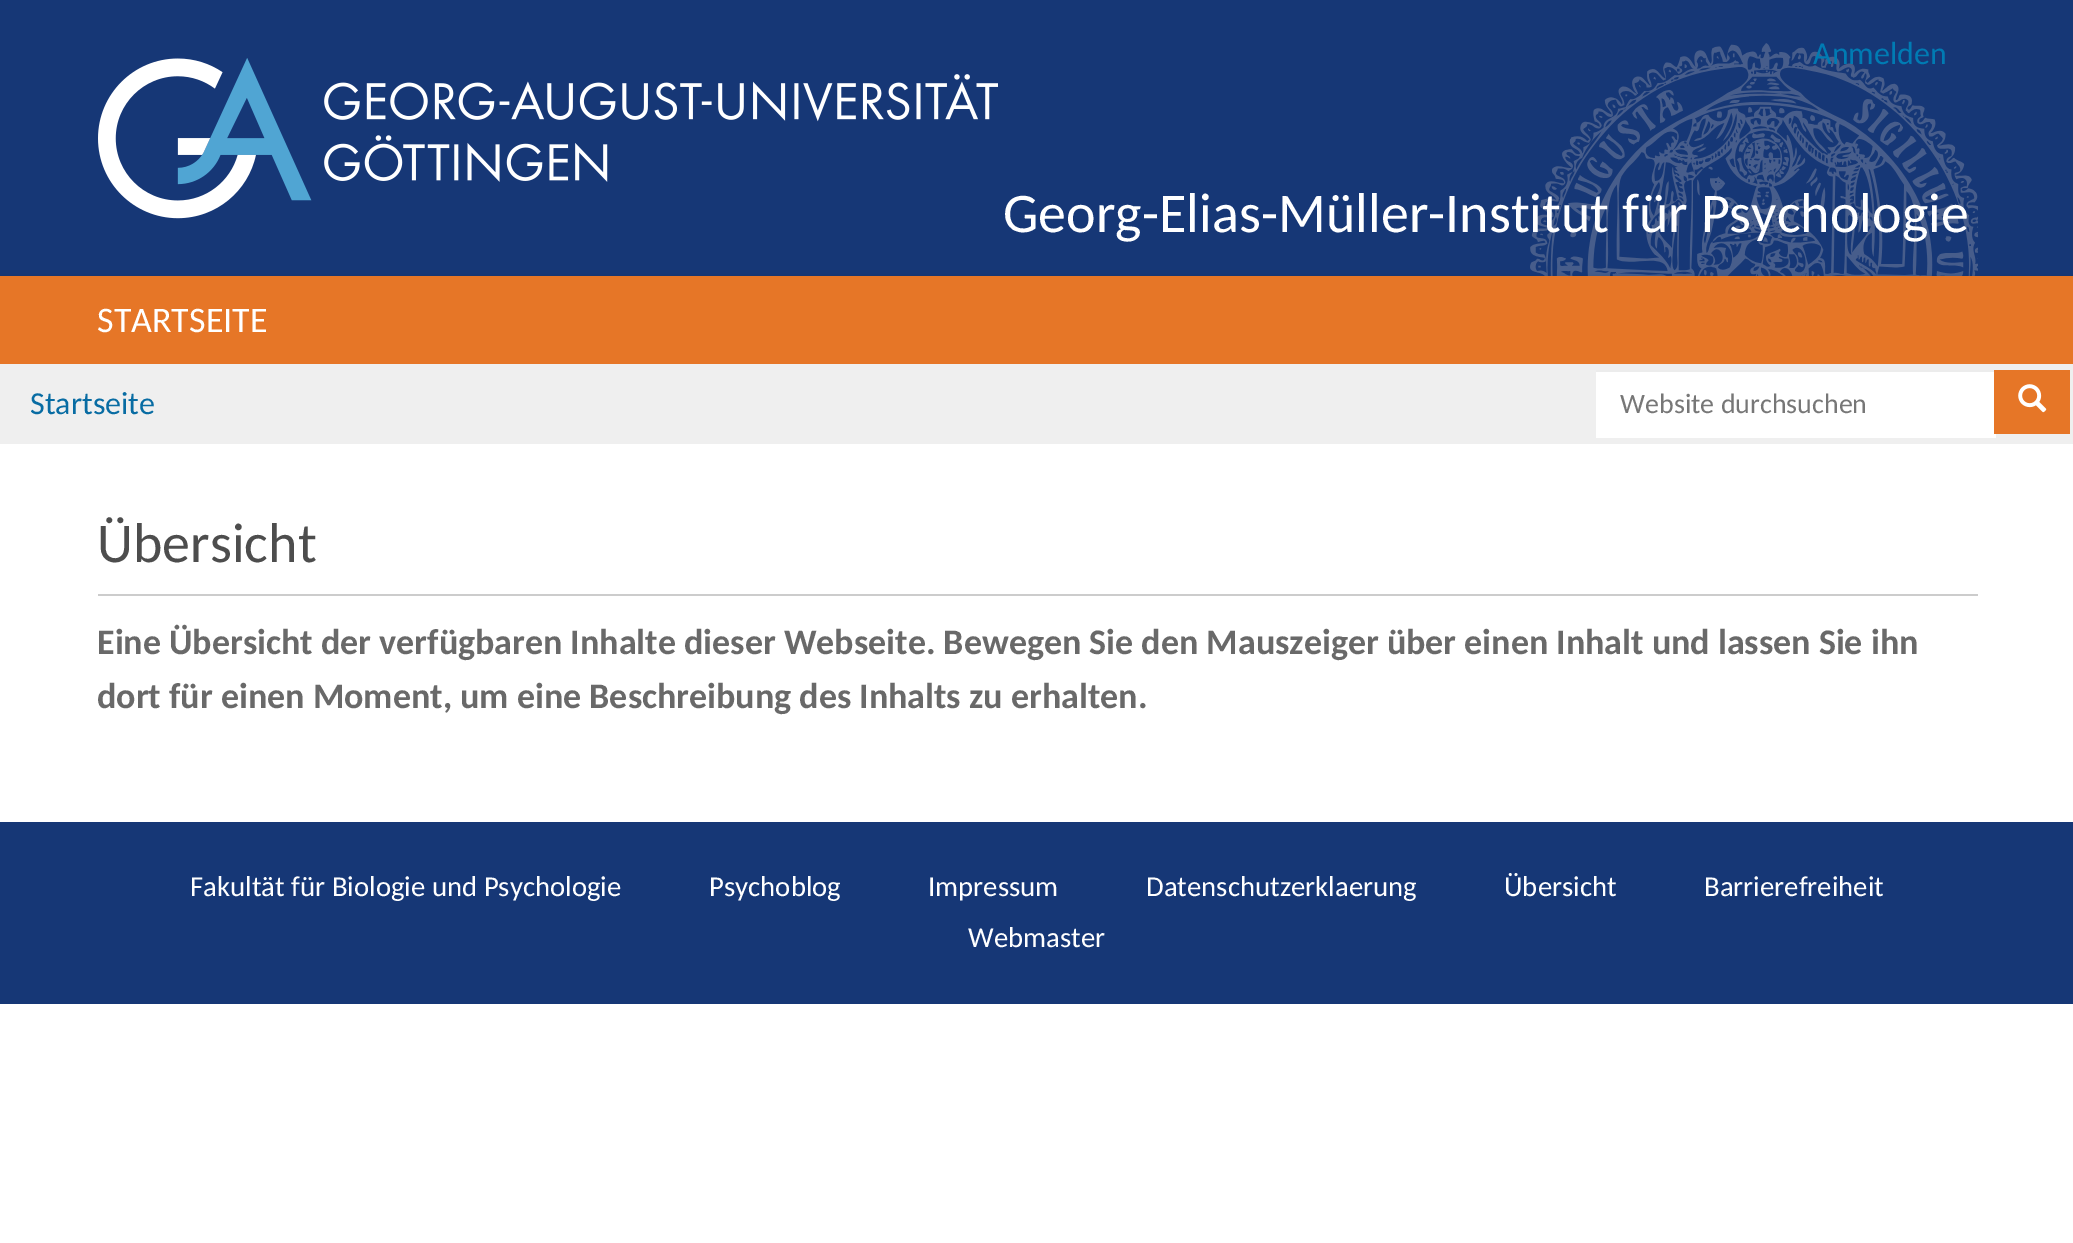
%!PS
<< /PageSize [2073 1243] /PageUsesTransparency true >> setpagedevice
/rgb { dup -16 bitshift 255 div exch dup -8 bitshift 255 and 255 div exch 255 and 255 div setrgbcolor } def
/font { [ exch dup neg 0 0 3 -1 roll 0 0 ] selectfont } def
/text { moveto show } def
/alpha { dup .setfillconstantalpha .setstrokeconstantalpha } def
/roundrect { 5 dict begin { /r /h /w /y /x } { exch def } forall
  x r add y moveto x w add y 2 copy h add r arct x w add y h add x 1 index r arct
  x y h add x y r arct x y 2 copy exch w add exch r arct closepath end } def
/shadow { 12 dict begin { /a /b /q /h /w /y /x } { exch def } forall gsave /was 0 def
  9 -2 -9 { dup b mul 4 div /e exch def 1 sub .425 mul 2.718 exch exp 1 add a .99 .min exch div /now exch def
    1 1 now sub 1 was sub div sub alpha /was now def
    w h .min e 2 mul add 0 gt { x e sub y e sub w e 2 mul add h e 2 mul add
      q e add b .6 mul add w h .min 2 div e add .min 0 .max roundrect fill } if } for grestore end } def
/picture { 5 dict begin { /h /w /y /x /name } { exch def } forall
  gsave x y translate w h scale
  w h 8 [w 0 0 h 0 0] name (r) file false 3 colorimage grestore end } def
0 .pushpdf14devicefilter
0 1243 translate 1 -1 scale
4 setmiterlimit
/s1 { /Carlito-Regular 32 font 16#007BB3 rgb } def
/s2 { /Carlito-Regular 56 font 16#FFFFFF rgb } def
/s3 { /Carlito-Regular 36 font 16#FFFFFF rgb } def
/s4 { /Carlito-Regular 32 font 16#086CA3 rgb } def
/s5 { /Carlito-Regular 28 font 16#777777 rgb } def
/s6 { /Carlito-Regular 56 font 16#4D4D4D rgb } def
/s7 { /Carlito-Bold 36 font 16#696969 rgb } def
/s8 { /Carlito-Regular 28.75 font 16#FFFFFF rgb } def
16#FFFFFF rgb
0 0 2073 1243 rectfill
16#163776 rgb
0 0 2073 276 rectfill
(pic1.raw) 1530 43 448 233 picture
s1
(Anmelden) 1813 64 text
(pic2.raw) 98 58 900 161 picture
s2
(Georg-Elias-Müller-Institut für Psychologie) 1003 232 text
16#000000 rgb
0 278 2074 88 0 3 0.17 shadow
16#E67627 rgb
0 276 2073 88 rectfill
s3
(STARTSEITE) 97 332 text
16#EFEFEF rgb
0 364 2073 80 rectfill
s4
(Startseite) 30 414 text
16#FFFFFF rgb
1596 372 400 66 rectfill
16#ECECEC rgb
1596 370 400 2 rectfill
s5
(Website durchsuchen) 1620 413 text
16#E67627 rgb
1994 370 76 64 rectfill
(pic3.raw) 2018 384 29 29 picture
16#CCCCCC rgb
98 594 1880 2 rectfill
s6
(Übersicht) 97 562 text
s7
(Eine Übersicht der verfügbaren Inhalte dieser Webseite. Bewegen Sie den Mauszeiger über einen Inhalt und lassen Sie ihn) 97 654 text
(dort für einen Moment, um eine Beschreibung des Inhalts zu erhalten.) 97 708 text
16#163776 rgb
0 822 2073 182 rectfill
s8
(Fakultät für Biologie und Psychologie) 190 896 text
(Psychoblog) 709 896 text
(Impressum) 928 896 text
(Datenschutzerklaerung) 1146 896 text
(Übersicht) 1504 896 text
(Barrierefreiheit) 1704 896 text
(Webmaster) 968 947 text
.poppdf14devicefilter showpage
